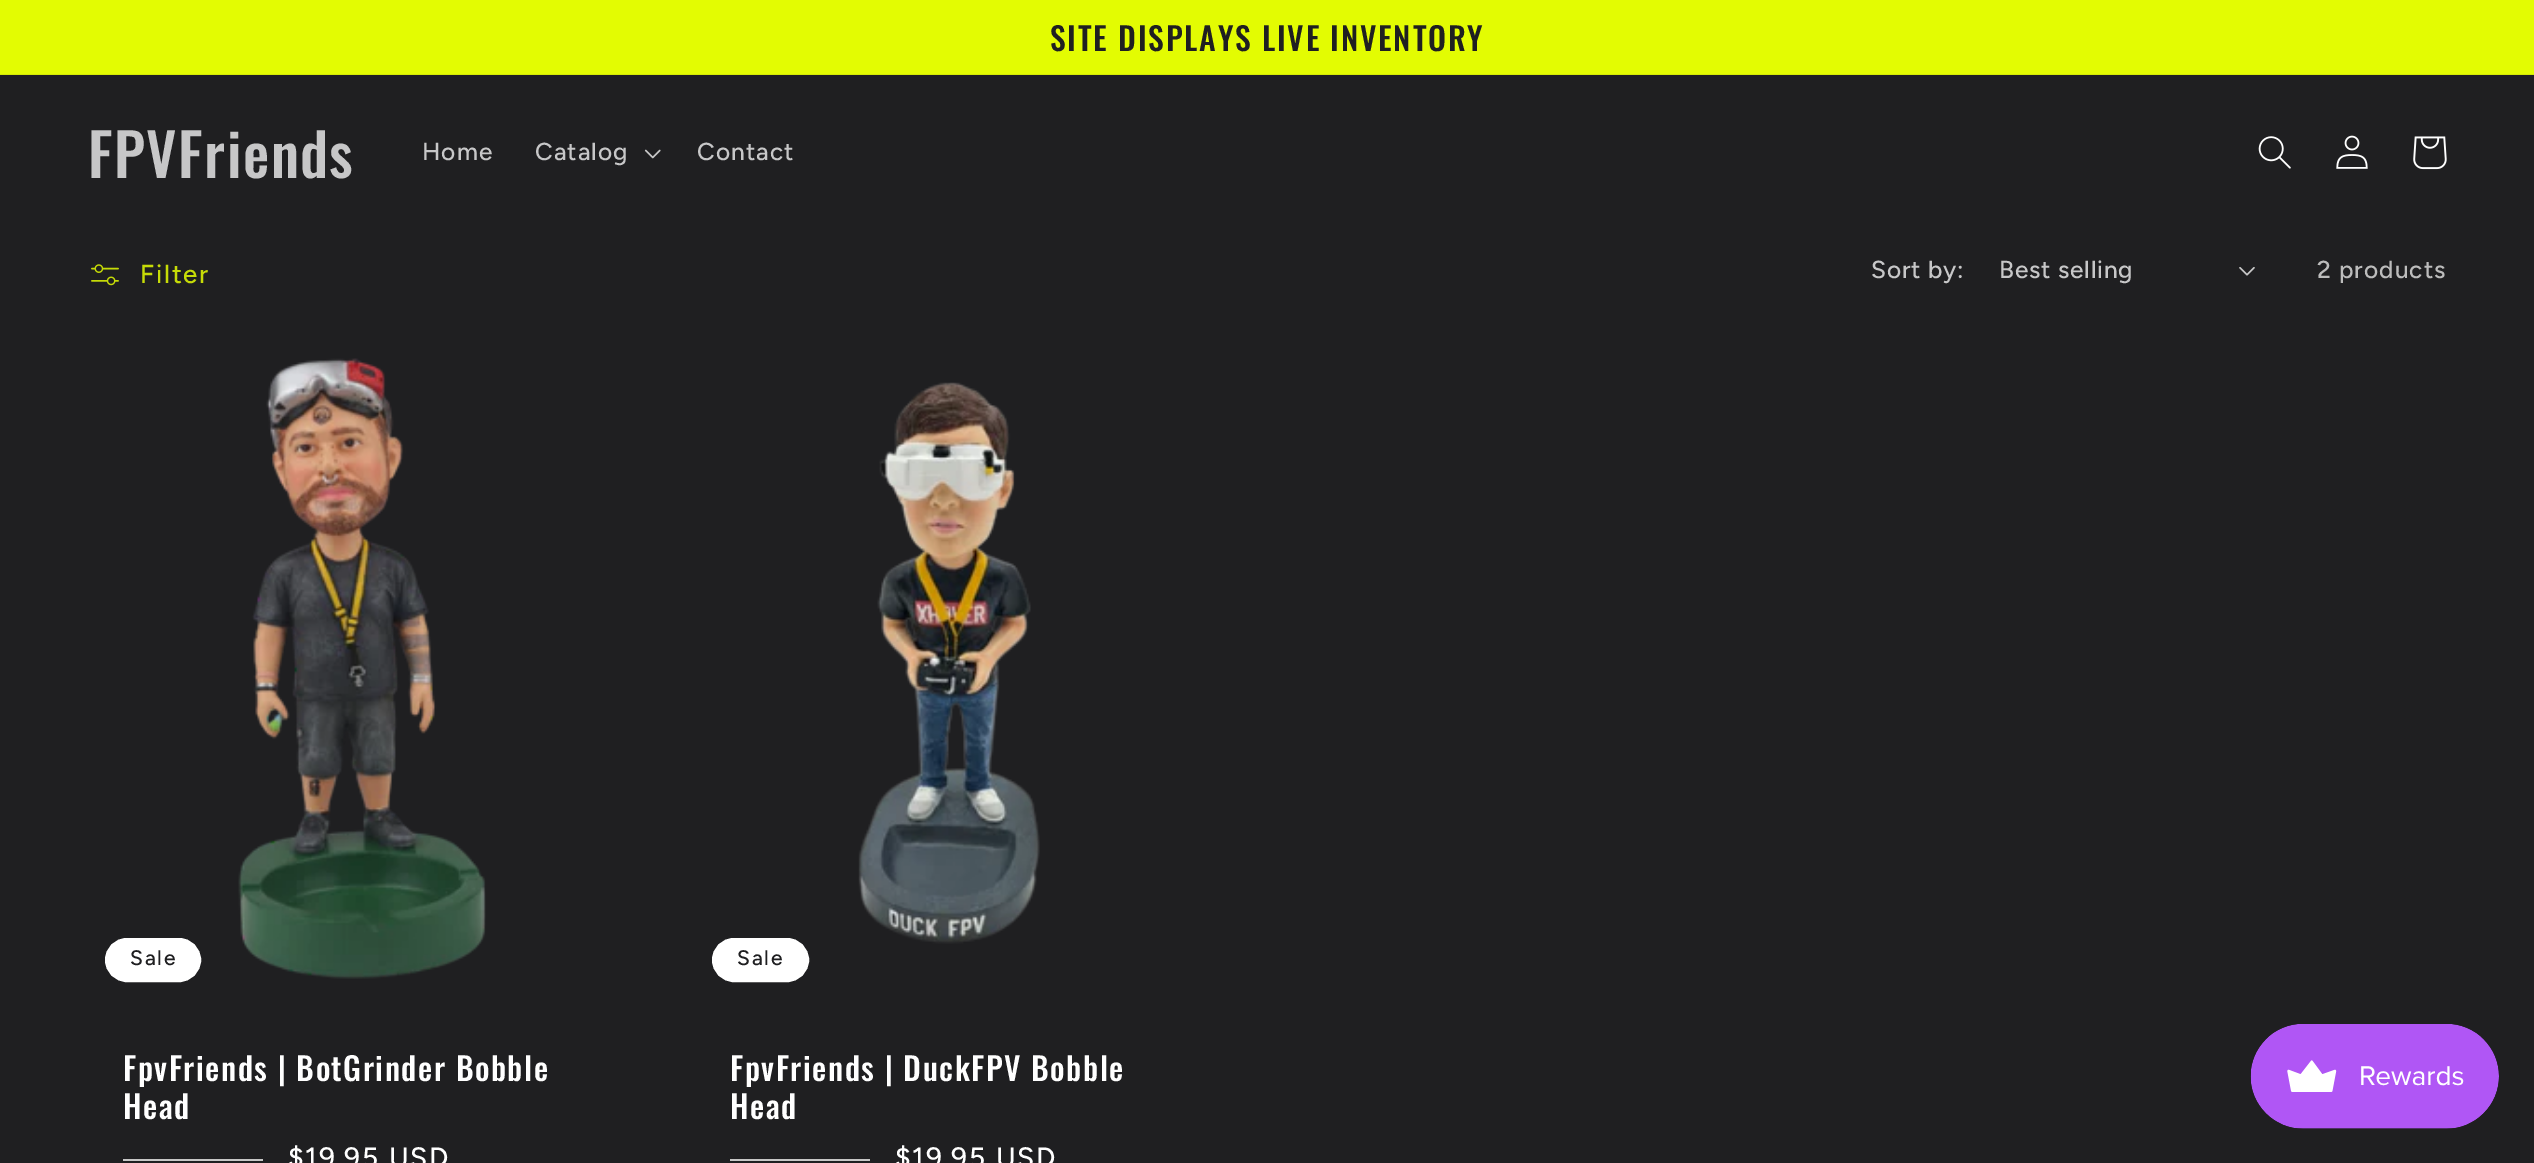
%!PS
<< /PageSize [2534 1163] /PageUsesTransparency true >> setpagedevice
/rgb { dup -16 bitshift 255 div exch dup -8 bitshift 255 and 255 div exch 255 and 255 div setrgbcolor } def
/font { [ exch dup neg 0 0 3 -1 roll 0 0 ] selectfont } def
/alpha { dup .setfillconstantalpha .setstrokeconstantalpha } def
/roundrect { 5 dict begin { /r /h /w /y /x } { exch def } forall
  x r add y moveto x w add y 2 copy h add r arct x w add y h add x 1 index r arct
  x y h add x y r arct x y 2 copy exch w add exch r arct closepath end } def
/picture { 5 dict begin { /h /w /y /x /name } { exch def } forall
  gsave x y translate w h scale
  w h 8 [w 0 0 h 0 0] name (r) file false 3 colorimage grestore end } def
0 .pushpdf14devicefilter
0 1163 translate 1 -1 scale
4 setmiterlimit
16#1F1F21 rgb
0 0 2534 1163 rectfill
16#E3FC02 rgb
0 0 2534 74 rectfill
16#D3EA04 rgb
0 74 2534 1 rectfill
/Oswald-Medium 31.8 font
16#1F1F21 rgb
1050 51 moveto 1.75 0 (SITE DISPLAYS LIVE INVENTORY) ashow
/Oswald-Medium 59 font
16#C7C7C8 rgb
88 178 moveto 1.5 0 (FPVFriends) ashow
/Figtree-Medium 24.5 font
422 160 moveto 1 0 (Home) ashow
535 160 moveto 1 0 (Catalog) ashow
(pic1.raw) 644 149 17 10 picture
697 160 moveto 1 0 (Contact) ashow
(pic2.raw) 2258 136 33 33 picture
(pic3.raw) 2336 135 32 34 picture
(pic4.raw) 2413 136 34 34 picture
(pic5.raw) 91 264 28 22 picture
/Figtree-Medium 26 font
16#C6DB07 rgb
140 283 moveto 1.75 0 (Filter) ashow
/Figtree-Medium 24.5 font
16#C7C7C8 rgb
1871 278 moveto 0.75 0 (Sort by:) ashow
1999 278 moveto 0.75 0 (Best selling) ashow
(pic6.raw) 2239 267 16 9 picture
16#BCBCBC rgb
2317 278 moveto 1 0 (2 products) ashow
16#FFFFFF rgb
106 939 94 42 21 roundrect gsave fill grestore
2 setlinewidth
stroke
/Figtree-Medium 21 font
16#1F1F21 rgb
130 965 moveto 1.75 0 (Sale) ashow
(pic7.raw) 238 358 248 621 picture
/Oswald-Medium 31.8 font
16#FFFFFF rgb
123 1081 moveto 1.5 0 (FpvFriends | BotGrinder Bobble) ashow
123 1119 moveto 1.5 0 (Head) ashow
0.75 alpha
123 1159 140 2 rectfill
/Figtree-Medium 28 font
1 alpha
288 1167 moveto 1.75 0 ($19.95 USD) ashow
(pic8.raw) 858 382 182 562 picture
713 939 95 42 21 roundrect gsave fill grestore
stroke
/Figtree-Medium 21 font
16#1F1F21 rgb
737 965 moveto 1.75 0 (Sale) ashow
/Oswald-Medium 31.8 font
16#FFFFFF rgb
730 1081 moveto 1.5 0 (FpvFriends | DuckFPV Bobble) ashow
730 1119 moveto 1.5 0 (Head) ashow
0.75 alpha
730 1159 140 2 rectfill
/Figtree-Medium 28 font
1 alpha
895 1167 moveto 1.75 0 ($19.95 USD) ashow
(pic9.raw) 2250 1024 249 105 picture
.poppdf14devicefilter showpage
